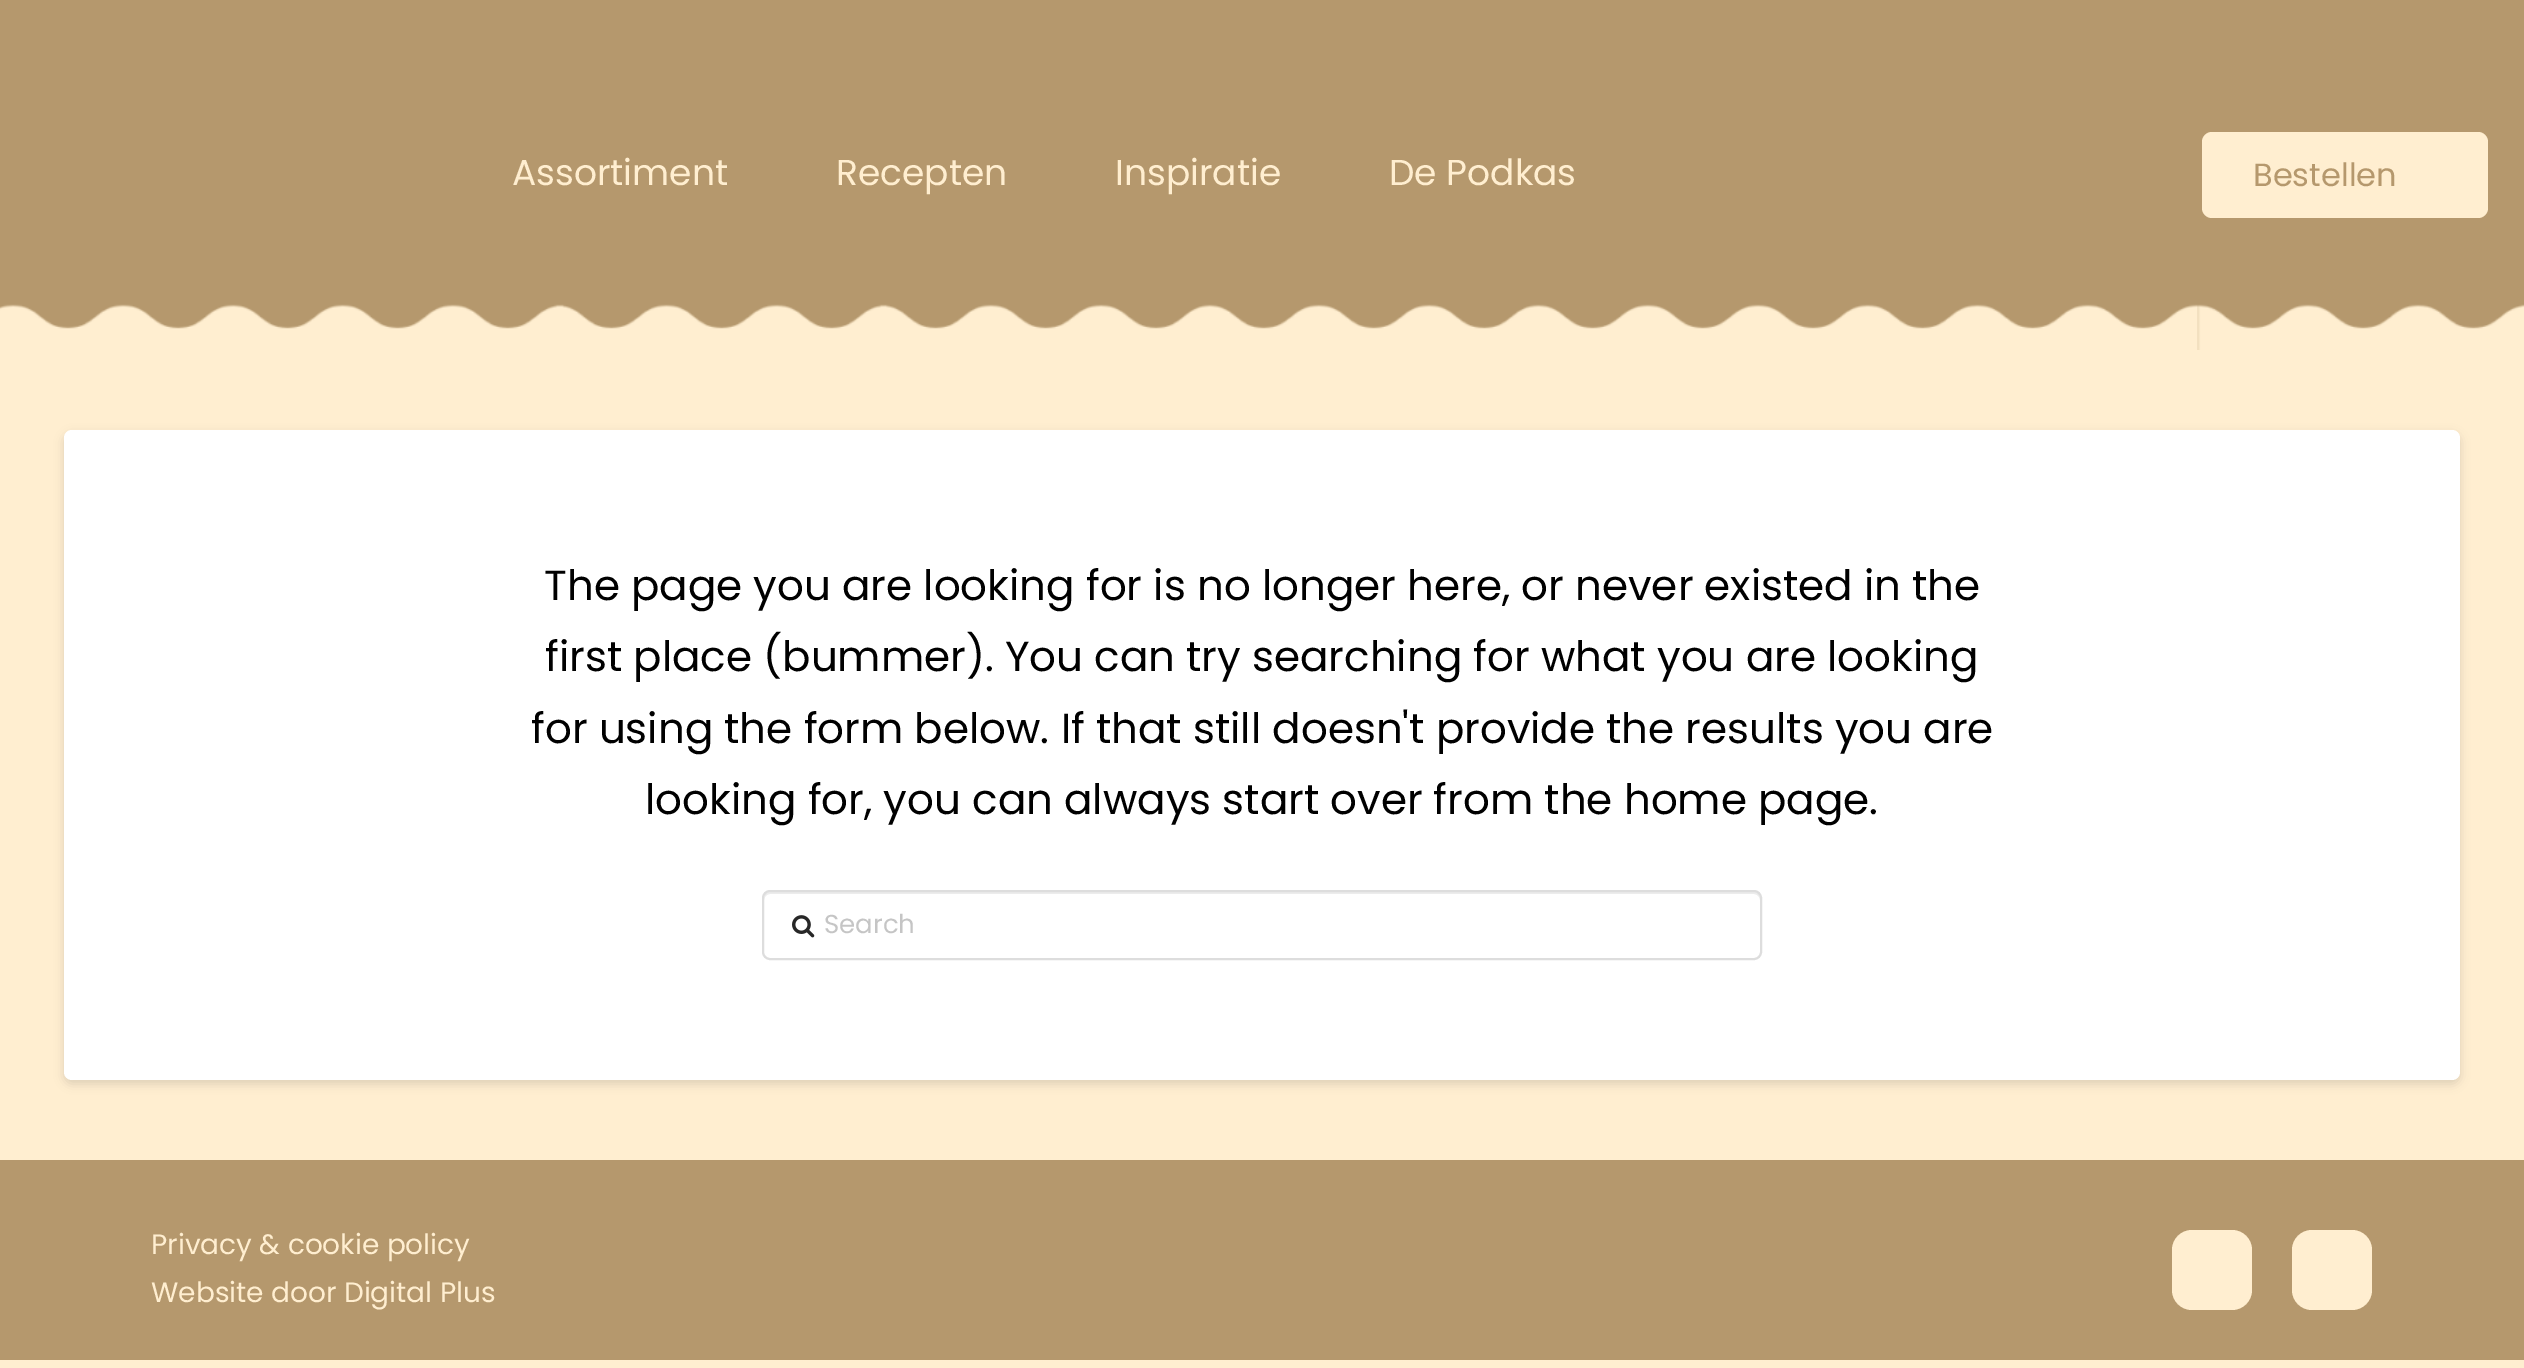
%!PS
<< /PageSize [2524 1368] /PageUsesTransparency true >> setpagedevice
/rgb { dup -16 bitshift 255 div exch dup -8 bitshift 255 and 255 div exch 255 and 255 div setrgbcolor } def
/font { [ exch dup neg 0 0 3 -1 roll 0 0 ] selectfont } def
/text { moveto show } def
/alpha { dup .setfillconstantalpha .setstrokeconstantalpha } def
/roundrect { 5 dict begin { /r /h /w /y /x } { exch def } forall
  x r add y moveto x w add y 2 copy h add r arct x w add y h add x 1 index r arct
  x y h add x y r arct x y 2 copy exch w add exch r arct closepath end } def
/shadow { 12 dict begin { /a /b /q /h /w /y /x } { exch def } forall gsave /was 0 def
  9 -2 -9 { dup b mul 4 div /e exch def 1 sub .425 mul 2.718 exch exp 1 add a .99 .min exch div /now exch def
    1 1 now sub 1 was sub div sub alpha /was now def
    w h .min e 2 mul add 0 gt { x e sub y e sub w e 2 mul add h e 2 mul add
      q e add b .6 mul add w h .min 2 div e add .min 0 .max roundrect fill } if } for grestore end } def
/picture { 5 dict begin { /h /w /y /x /name } { exch def } forall
  gsave x y translate w h scale
  w h 8 [w 0 0 h 0 0] name (r) file false 3 colorimage grestore end } def
0 .pushpdf14devicefilter
0 1368 translate 1 -1 scale
4 setmiterlimit
/s1 { /Poppins-Regular 36 font 16#FFEED0 rgb } def
/s2 { /Poppins-Regular 32 font 16#B5986D rgb } def
/s3 { /Poppins-Regular 42 font 16#000000 rgb } def
/s4 { /Poppins-Regular 26 font 16#C5C5C5 rgb } def
/s5 { /Poppins-Regular 28 font 16#FFEED0 rgb } def
16#FFEED0 rgb
0 0 2524 1368 rectfill
(pic1.raw) 0 0 2524 350 picture
s1
(Assortiment) 512 185 text
(Recepten) 836 185 text
(Inspiratie) 1115 185 text
(De Podkas) 1389 185 text
2202 132 286 86 10 roundrect fill
s2
(Bestellen) 2253 186 text
16#000000 rgb
64 434 2396 650 8 5 0.13 shadow
16#FFFFFF rgb
64 430 2396 650 8 roundrect fill
s3
(The page you are looking for is no longer here, or never existed in the) 544 600 text
(first place \(bummer\). You can try searching for what you are looking) 545 671 text
(for using the form below. If that still doesn't provide the results you are) 531 743 text
(looking for, you can always start over from the home page.) 645 814 text
16#ECECEC rgb
770 894 moveto 1754 894 lineto 1757 894 1760 897 1760 900 curveto 1760 896 1759 892 1754 892 curveto 770 892 lineto 765 892 764 896 764 900 curveto 764 897 767 894 770 894 curveto closepath fill
16#DDDDDD rgb
2 setlinewidth
763 891 998 68 7 roundrect stroke
(pic2.raw) 792 915 23 23 picture
s4
(Search) 824 933 text
16#B5986D rgb
0 1160 2524 200 rectfill
s5
(Privacy & cookie policy) 151 1254 text
(Website door Digital Plus) 151 1302 text
2172 1230 80 80 20 roundrect fill
2292 1230 80 80 20 roundrect fill
.poppdf14devicefilter showpage
